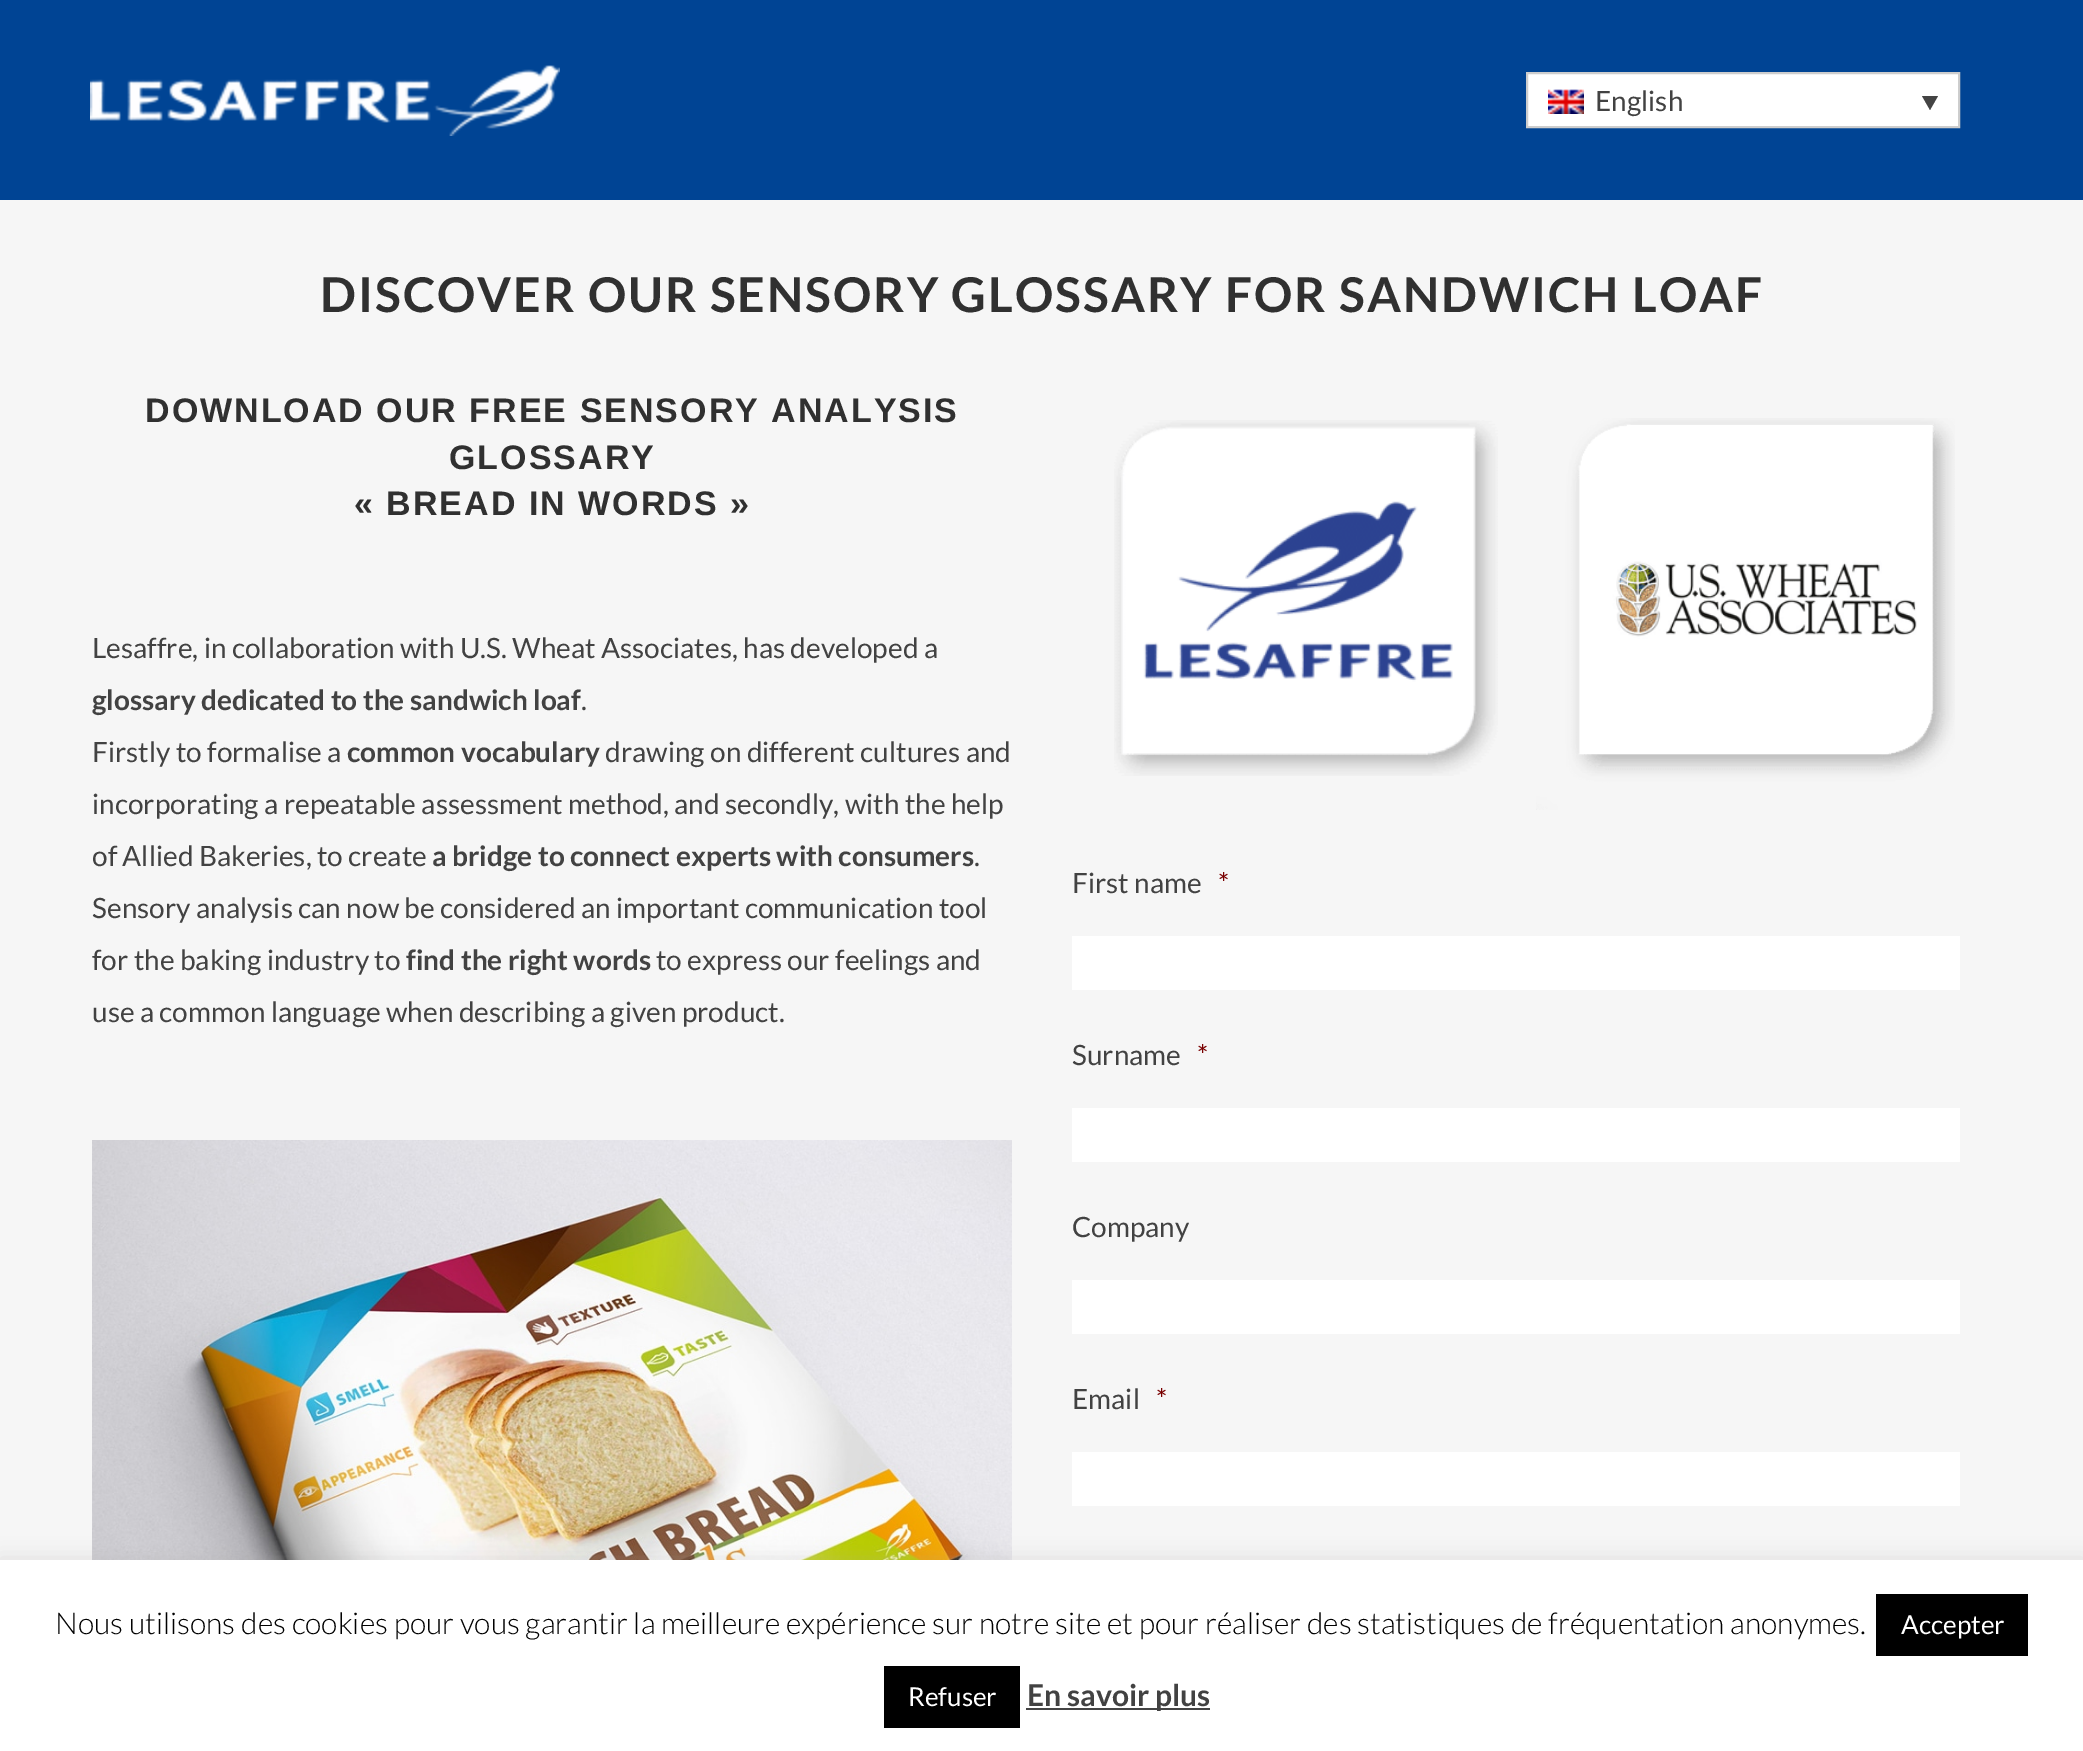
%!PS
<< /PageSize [2083 1751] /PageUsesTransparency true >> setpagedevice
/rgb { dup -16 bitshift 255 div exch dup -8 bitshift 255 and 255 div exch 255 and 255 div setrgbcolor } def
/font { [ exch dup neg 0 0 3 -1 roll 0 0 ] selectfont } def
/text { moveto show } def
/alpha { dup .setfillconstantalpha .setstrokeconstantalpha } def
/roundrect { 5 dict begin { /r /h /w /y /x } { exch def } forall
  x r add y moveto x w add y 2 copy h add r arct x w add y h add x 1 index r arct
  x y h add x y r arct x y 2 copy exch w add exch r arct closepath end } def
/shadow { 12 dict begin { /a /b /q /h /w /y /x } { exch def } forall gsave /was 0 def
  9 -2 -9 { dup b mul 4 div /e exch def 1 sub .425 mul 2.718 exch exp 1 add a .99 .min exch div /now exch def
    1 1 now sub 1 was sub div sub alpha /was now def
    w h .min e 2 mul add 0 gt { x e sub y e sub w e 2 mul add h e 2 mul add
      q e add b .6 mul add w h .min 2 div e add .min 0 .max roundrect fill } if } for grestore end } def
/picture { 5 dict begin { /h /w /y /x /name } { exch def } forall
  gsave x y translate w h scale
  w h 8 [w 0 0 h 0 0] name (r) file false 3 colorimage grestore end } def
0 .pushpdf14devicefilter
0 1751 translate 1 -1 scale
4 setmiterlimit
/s1 { /Lato-Regular 28 font 16#424242 rgb } def
/s2 { /Lato-Bold 28 font 16#424242 rgb } def
/s3 { /Lato-Regular 28 font 16#790000 rgb } def
/s4 { /Lato-Light 30 font 16#000000 rgb } def
/s5 { /Lato-Regular 26 font 16#FFFFFF rgb } def
/s6 { /Lato-Bold 30 font 16#424242 rgb } def
16#F6F6F6 rgb
0 0 2083 1751 rectfill
16#004494 rgb
0 0 2083 200 rectfill
(pic1.raw) 90 65 470 71 picture
16#FFFFFF rgb
1527 73 moveto 1959 73 lineto 1959 127 lineto 1527 127 lineto closepath gsave fill grestore
16#CDCDCD rgb
2 setlinewidth
stroke
(pic2.raw) 1548 89 36 25 picture
s1
(English) 1595 111 text
16#444444 rgb
1922 96 moveto 1938 96 lineto 1930 110 lineto closepath fill
/Lato-Bold 48 font
16#303030 rgb
320 312 moveto 2 0 (DISCOVER OUR SENSORY GLOSSARY FOR SANDWICH LOAF) ashow
/LiberationSans-Bold 34 font
145 422 moveto 2 0 (DOWNLOAD OUR FREE SENSORY ANALYSIS) ashow
449 469 moveto 2 0 (GLOSSARY) ashow
354 515 moveto 2 0 (« BREAD IN WORDS ») ashow
s1
(Lesaffre, in collaboration with U.S. Wheat Associates, has developed a) 92 658 text
s2
(glossary dedicated to the sandwich loaf) 92 710 text
s1
(.) 581 710 text
(Firstly to formalise a) 92 762 text
s2
(common vocabulary) 347 762 text
s1
(drawing on different cultures and) 605 762 text
(incorporating a repeatable assessment method, and secondly, with the help) 92 814 text
(of Allied Bakeries, to create) 92 866 text
s2
(a bridge to connect experts with consumers) 432 866 text
s1
(.) 974 866 text
(Sensory analysis can now be considered an important communication tool) 92 918 text
(for the baking industry to) 92 970 text
s2
(find the right words) 406 970 text
s1
(to express our feelings and) 656 970 text
(use a common language when describing a given product.) 92 1022 text
(pic3.raw) 92 1140 920 420 picture
(pic4.raw) 1114 420 384 356 picture
(pic5.raw) 1536 418 419 392 picture
(First name) 1072 893 text
s3
(*) 1218 893 text
16#FFFFFF rgb
1072 936 888 54 rectfill
s1
(Surname) 1072 1065 text
s3
(*) 1197 1065 text
16#FFFFFF rgb
1072 1108 888 54 rectfill
s1
(Company) 1072 1237 text
16#FFFFFF rgb
1072 1280 888 54 rectfill
s1
(Email) 1072 1409 text
s3
(*) 1156 1409 text
16#FFFFFF rgb
1072 1452 888 54 rectfill
16#ACABAB rgb
0 1558 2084 192 0 10 0.3 shadow
16#FFFFFF rgb
0 1560 2083 191 rectfill
s4
(Nous utilisons des cookies pour vous garantir la meilleure expérience sur notre site et pour réaliser des statistiques de fréquentation anonymes.) 55 1634 text
1876 1594 152 62 rectfill
s5
(Accepter) 1901 1634 text
16#000000 rgb
884 1666 136 62 rectfill
s5
(Refuser) 908 1706 text
16#444444 rgb
1026 1708 184 2 rectfill
s6
(En savoir plus) 1027 1706 text
.poppdf14devicefilter showpage
